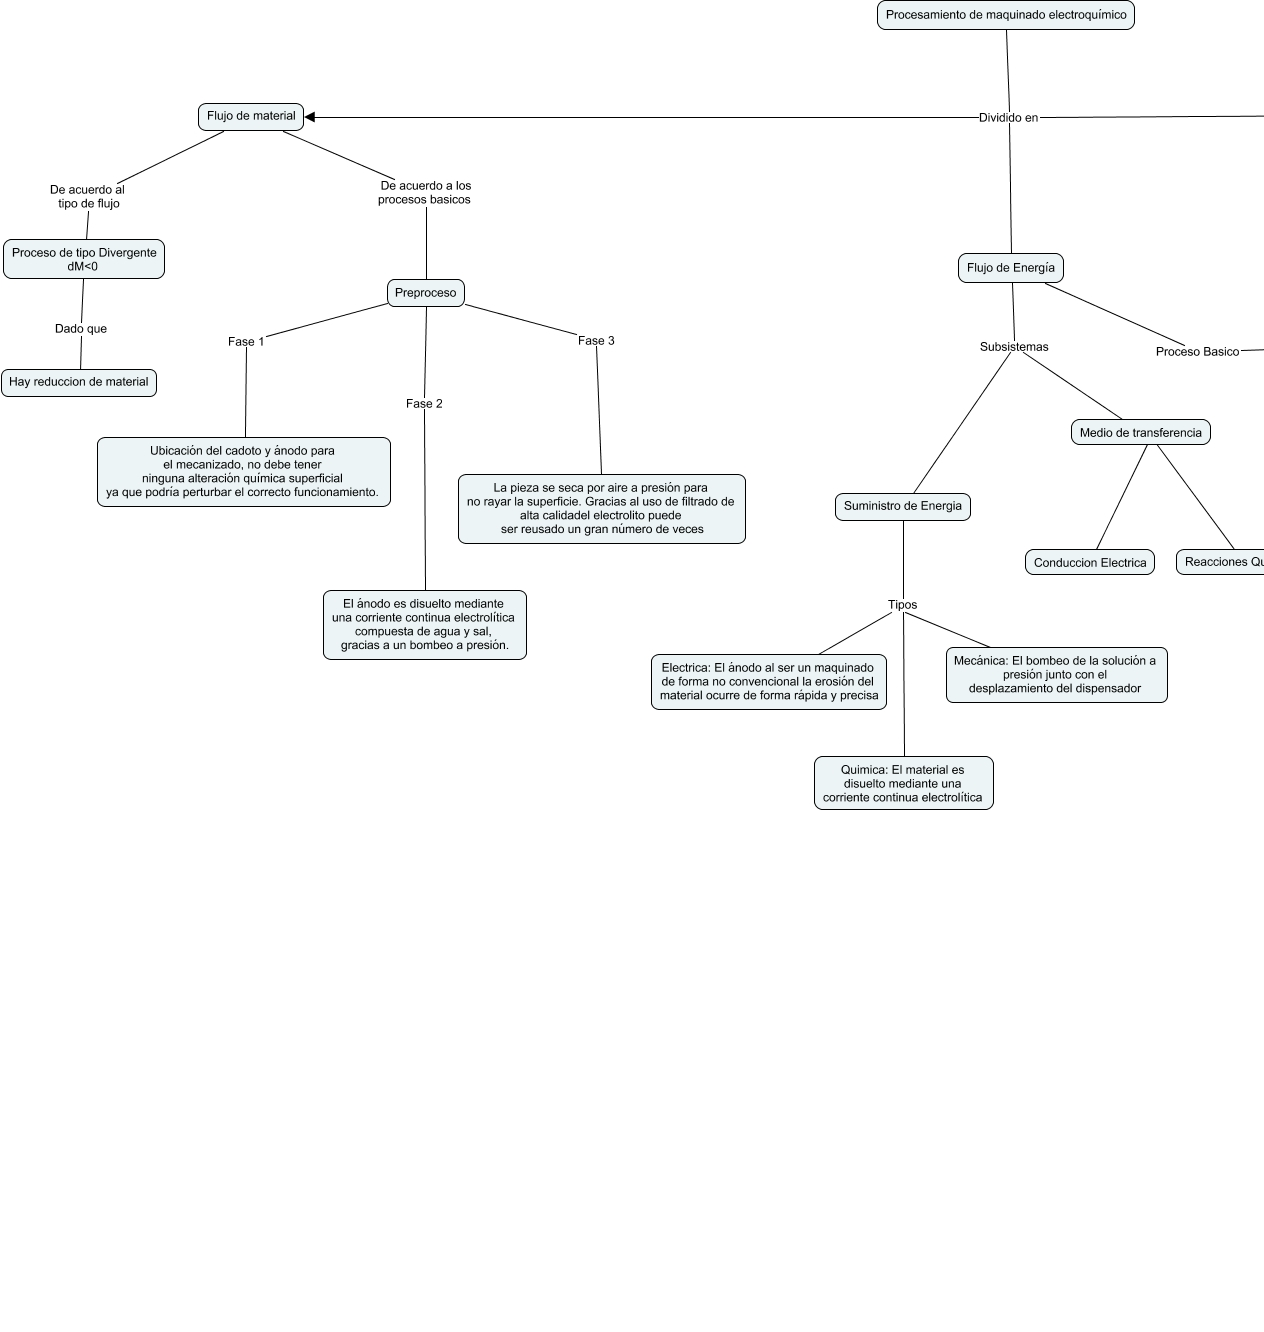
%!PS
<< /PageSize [1264 1332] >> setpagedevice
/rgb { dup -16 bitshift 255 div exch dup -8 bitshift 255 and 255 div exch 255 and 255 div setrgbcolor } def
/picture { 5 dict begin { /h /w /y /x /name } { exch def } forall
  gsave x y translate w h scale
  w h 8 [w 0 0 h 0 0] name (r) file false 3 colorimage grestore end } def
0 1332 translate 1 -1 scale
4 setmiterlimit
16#FFFFFF rgb
0 0 1264 1332 rectfill
(pic1.raw) 1 0 1263 810 picture
showpage
